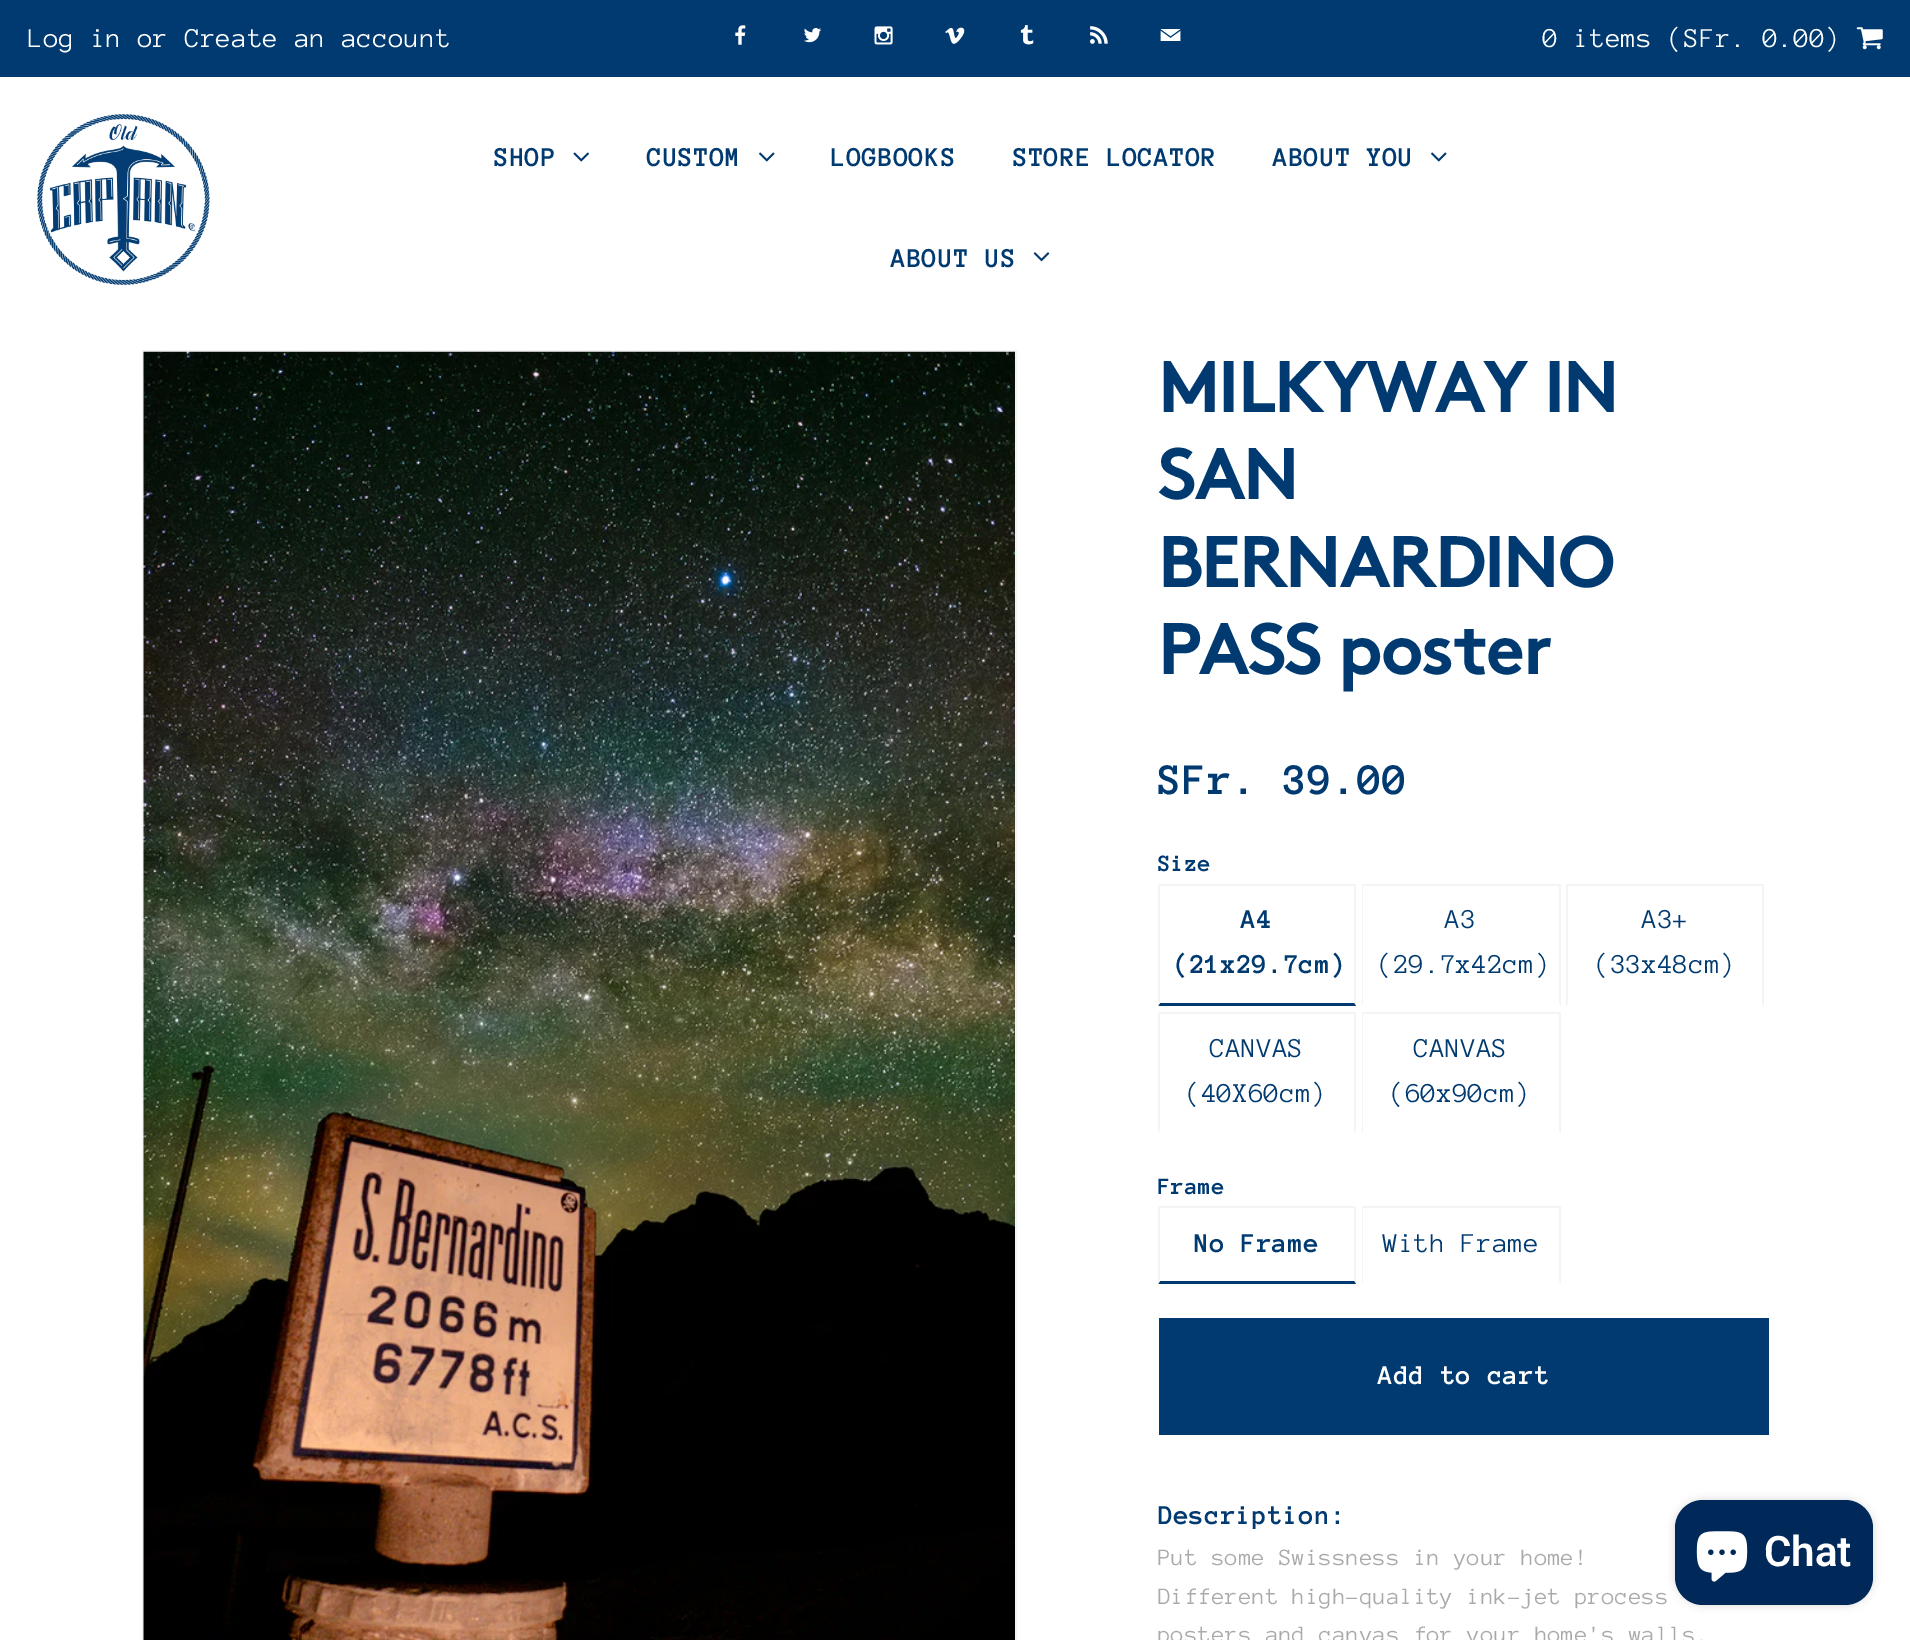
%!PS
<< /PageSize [1910 1640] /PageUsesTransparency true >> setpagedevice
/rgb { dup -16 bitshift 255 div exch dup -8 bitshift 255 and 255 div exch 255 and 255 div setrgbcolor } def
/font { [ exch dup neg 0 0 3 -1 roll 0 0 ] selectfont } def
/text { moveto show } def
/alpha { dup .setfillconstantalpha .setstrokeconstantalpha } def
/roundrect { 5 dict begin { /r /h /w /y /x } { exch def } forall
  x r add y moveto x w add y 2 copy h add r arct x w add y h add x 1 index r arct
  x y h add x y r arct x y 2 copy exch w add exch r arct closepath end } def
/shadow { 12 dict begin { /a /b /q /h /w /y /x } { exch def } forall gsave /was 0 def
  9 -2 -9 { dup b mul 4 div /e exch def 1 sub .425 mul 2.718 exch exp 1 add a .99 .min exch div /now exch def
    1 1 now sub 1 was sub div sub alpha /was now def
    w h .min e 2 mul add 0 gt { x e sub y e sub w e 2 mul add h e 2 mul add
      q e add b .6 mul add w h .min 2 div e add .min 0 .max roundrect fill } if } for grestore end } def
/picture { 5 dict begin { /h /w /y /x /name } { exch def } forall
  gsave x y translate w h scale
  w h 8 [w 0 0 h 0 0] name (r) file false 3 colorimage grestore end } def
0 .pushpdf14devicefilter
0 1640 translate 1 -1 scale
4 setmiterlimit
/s1 { /Roboto-SemiBold 42 font 16#FFFFFF rgb } def
16#FFFFFF rgb
0 0 1910 1640 rectfill
16#003A70 rgb
0 0 1910 77 rectfill
/AnonymousPro-Regular 28 font
16#FFFFFF rgb
28 47 moveto 0.4 0 (Log in or Create an account) ashow
(pic1.raw) 735 25 11 20 picture
(pic2.raw) 804 28 18 15 picture
(pic3.raw) 874 26 19 19 picture
(pic4.raw) 945 27 20 17 picture
(pic5.raw) 1020 25 14 20 picture
(pic6.raw) 1090 26 18 18 picture
(pic7.raw) 1160 29 21 12 picture
1543 47 moveto 0.4 0 (0 items \(SFr. 0.00\)) ashow
(pic8.raw) 1856 27 27 23 picture
(pic9.raw) 37 114 173 171 picture
/AnonymousPro-Bold 28 font
16#003A70 rgb
494 166 moveto 0.4 0 (SHOP) ashow
(pic10.raw) 573 152 16 10 picture
647 166 moveto 0.4 0 (CUSTOM) ashow
(pic11.raw) 759 152 16 10 picture
831 166 moveto 0.4 0 (LOGBOOKS) ashow
1013 166 moveto 0.4 0 (STORE LOCATOR) ashow
1273 166 moveto 0.4 0 (ABOUT YOU) ashow
(pic11.raw) 1431 152 16 10 picture
891 267 moveto 0.4 0 (ABOUT US) ashow
(pic12.raw) 1033 252 17 10 picture
16#F4F4F4 rgb
2 setlinewidth
143 351 873 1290 rectstroke
(pic13.raw) 143 351 872 1289 picture
/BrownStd-Bold 72.75 font
16#003A70 rgb
1158 412 moveto -2.25 0 (MILKYWAY IN) ashow
1158 499 moveto -2.25 0 (SAN) ashow
1158 587 moveto -2.25 0 (BERNARDINO) ashow
1158 674 moveto -2.25 0 (PASS poster) ashow
/AnonymousPro-Bold 44.75 font
1158 794 moveto 0.6 0 (SFr. 39.00) ashow
/AnonymousPro-Bold 24 font
1158 871 moveto 0.35 0 (Size) ashow
16#F4F4F4 rgb
1159 884 197 2 rectfill
1356 884 moveto 1356 1006 lineto 1354 1003 lineto 1354 886 lineto closepath fill
16#003A70 rgb
1356 1006 moveto 1158 1006 lineto 1160 1003 lineto 1354 1003 lineto closepath fill
16#F4F4F4 rgb
1158 1006 moveto 1158 884 lineto 1160 886 lineto 1160 1003 lineto closepath fill
/AnonymousPro-Bold 28 font
16#003A70 rgb
1241 928 moveto 0.4 0 (A4) ashow
1174 973 moveto 0.4 0 (\(21x29.7cm\)) ashow
16#F4F4F4 rgb
1362 884 199 2 rectfill
1561 884 moveto 1561 1006 lineto 1559 1003 lineto 1559 886 lineto closepath fill
1362 1006 moveto 1362 884 lineto 1363 886 lineto 1363 1003 lineto closepath fill
/AnonymousPro-Regular 28 font
16#003A70 rgb
1445 928 moveto 0.4 0 (A3) ashow
1378 973 moveto 0.4 0 (\(29.7x42cm\)) ashow
16#F4F4F4 rgb
1566 884 198 2 rectfill
1764 884 moveto 1764 1006 lineto 1762 1003 lineto 1762 886 lineto closepath fill
1566 1006 moveto 1566 884 lineto 1568 886 lineto 1568 1003 lineto closepath fill
16#003A70 rgb
1642 928 moveto 0.4 0 (A3+) ashow
1595 973 moveto 0.4 0 (\(33x48cm\)) ashow
16#F4F4F4 rgb
1159 1012 197 2 rectfill
1356 1012 moveto 1356 1134 lineto 1354 1130 lineto 1354 1013 lineto closepath fill
1158 1134 moveto 1158 1012 lineto 1160 1013 lineto 1160 1130 lineto closepath fill
16#003A70 rgb
1210 1057 moveto 0.4 0 (CANVAS) ashow
1186 1102 moveto 0.4 0 (\(40X60cm\)) ashow
16#F4F4F4 rgb
1362 1012 199 2 rectfill
1561 1012 moveto 1561 1134 lineto 1559 1130 lineto 1559 1013 lineto closepath fill
1362 1134 moveto 1362 1012 lineto 1363 1013 lineto 1363 1130 lineto closepath fill
16#003A70 rgb
1414 1057 moveto 0.4 0 (CANVAS) ashow
1390 1102 moveto 0.4 0 (\(60x90cm\)) ashow
/AnonymousPro-Bold 24 font
1158 1194 moveto 0.35 0 (Frame) ashow
16#F4F4F4 rgb
1159 1206 197 2 rectfill
1356 1206 moveto 1356 1284 lineto 1354 1281 lineto 1354 1208 lineto closepath fill
16#003A70 rgb
1356 1284 moveto 1158 1284 lineto 1160 1281 lineto 1354 1281 lineto closepath fill
16#F4F4F4 rgb
1158 1284 moveto 1158 1206 lineto 1160 1208 lineto 1160 1281 lineto closepath fill
/AnonymousPro-Bold 28 font
16#003A70 rgb
1194 1252 moveto 0.4 0 (No Frame) ashow
16#F4F4F4 rgb
1362 1206 199 2 rectfill
1561 1206 moveto 1561 1284 lineto 1559 1281 lineto 1559 1208 lineto closepath fill
1362 1284 moveto 1362 1206 lineto 1363 1208 lineto 1363 1281 lineto closepath fill
/AnonymousPro-Regular 28 font
16#003A70 rgb
1383 1252 moveto 0.4 0 (With Frame) ashow
1159 1318 610 117 rectfill
/AnonymousPro-Bold 28 font
16#FFFFFF rgb
1378 1384 moveto 0.4 0 (Add to cart) ashow
16#003A70 rgb
1158 1524 moveto 0.4 0 (Description:) ashow
/AnonymousPro-Regular 24 font
16#AAAAAA rgb
1158 1565 moveto 0.35 0 (Put some Swissness in your home!) ashow
1158 1604 moveto 0.35 0 (Different high-quality ink-jet process) ashow
1158 1642 moveto 0.35 0 (posters and canvas for your home's walls.) ashow
16#000000 rgb
1675 1500 198 105 28 4.5 0.15 shadow
16#002859 rgb
1675 1500 198 105 28 roundrect fill
(pic14.raw) 1696 1531 52 51 picture
s1
(Chat) 1764 1566 text
.poppdf14devicefilter showpage
